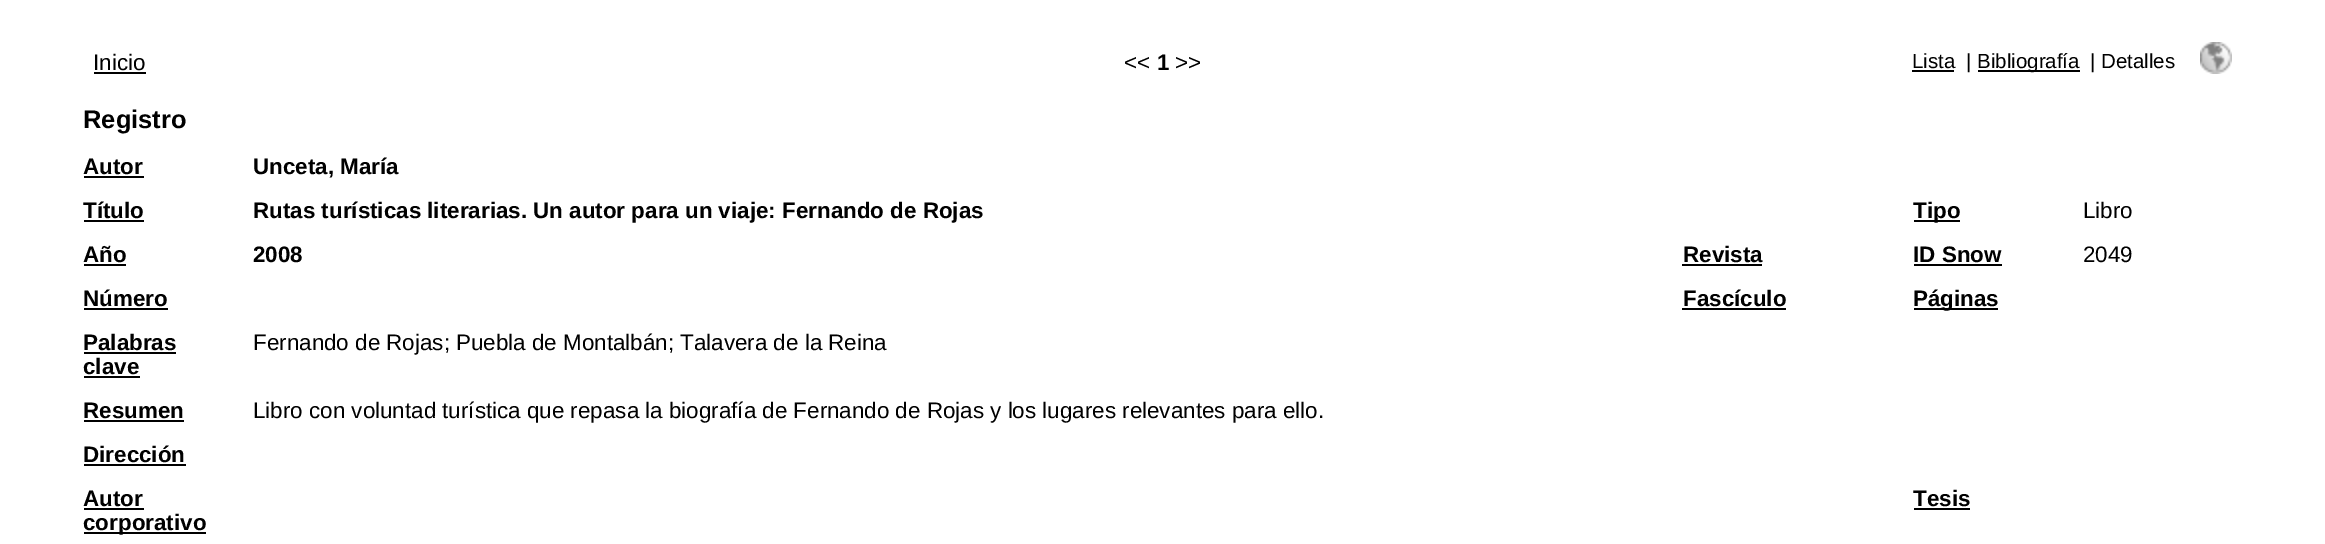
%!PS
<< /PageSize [2325 544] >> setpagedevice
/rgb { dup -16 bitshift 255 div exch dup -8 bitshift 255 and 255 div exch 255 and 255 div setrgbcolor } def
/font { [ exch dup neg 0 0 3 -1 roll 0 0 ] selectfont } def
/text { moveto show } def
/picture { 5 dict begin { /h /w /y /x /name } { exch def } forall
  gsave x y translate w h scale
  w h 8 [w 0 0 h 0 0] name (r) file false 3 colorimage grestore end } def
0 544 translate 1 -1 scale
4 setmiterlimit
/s1 { /LiberationSans-Regular 22.4 font 16#000000 rgb } def
/s2 { /LiberationSans-Bold 22.4 font 16#000000 rgb } def
/s3 { /LiberationSans-Regular 20.5 font 16#000000 rgb } def
/s4 { /LiberationSans-Bold 25.5 font 16#000000 rgb } def
16#FFFFFF rgb
0 0 2325 544 rectfill
s1
(Inicio) 93 70 text
94 72 52 2 rectfill
(<<) 1124 70 text
s2
(1) 1157 70 text
s1
(>>) 1175 70 text
s3
(Lista) 1912 68 text
1912 70 42 2 rectfill
(|) 1966 68 text
1978 70 102 2 rectfill
(Bibliografía) 1977 68 text
(| Detalles) 2090 68 text
(pic1.raw) 2200 42 32 32 picture
s4
(Registro) 83 128 text
s2
(Autor) 83 174 text
84 176 60 2 rectfill
(Unceta, María) 253 174 text
(Título) 83 218 text
84 220 60 2 rectfill
(Rutas turísticas literarias. Un autor para un viaje: Fernando de Rojas) 253 218 text
1914 220 46 2 rectfill
(Tipo) 1913 218 text
s1
(Libro) 2083 218 text
s2
(Año) 83 262 text
84 264 42 2 rectfill
(2008) 253 262 text
(Revista) 1683 262 text
1682 264 80 2 rectfill
(ID Snow) 1913 262 text
1914 264 88 2 rectfill
s1
(2049) 2083 262 text
s2
(Número) 83 306 text
84 308 84 2 rectfill
(Fascículo) 1683 306 text
1682 308 104 2 rectfill
1914 308 84 2 rectfill
(Páginas) 1913 306 text
(Palabras) 83 350 text
84 352 92 2 rectfill
(clave) 83 374 text
84 376 56 2 rectfill
s1
(Fernando de Rojas; Puebla de Montalbán; Talavera de la Reina) 253 350 text
s2
(Resumen) 83 418 text
84 420 100 2 rectfill
s1
(Libro con voluntad turística que repasa la biografía de Fernando de Rojas y los lugares relevantes para ello.) 253 418 text
s2
(Dirección) 83 462 text
84 464 102 2 rectfill
(Autor) 83 506 text
84 508 60 2 rectfill
84 532 122 2 rectfill
(corporativo) 83 530 text
(Tesis) 1913 506 text
1914 508 56 2 rectfill
showpage
